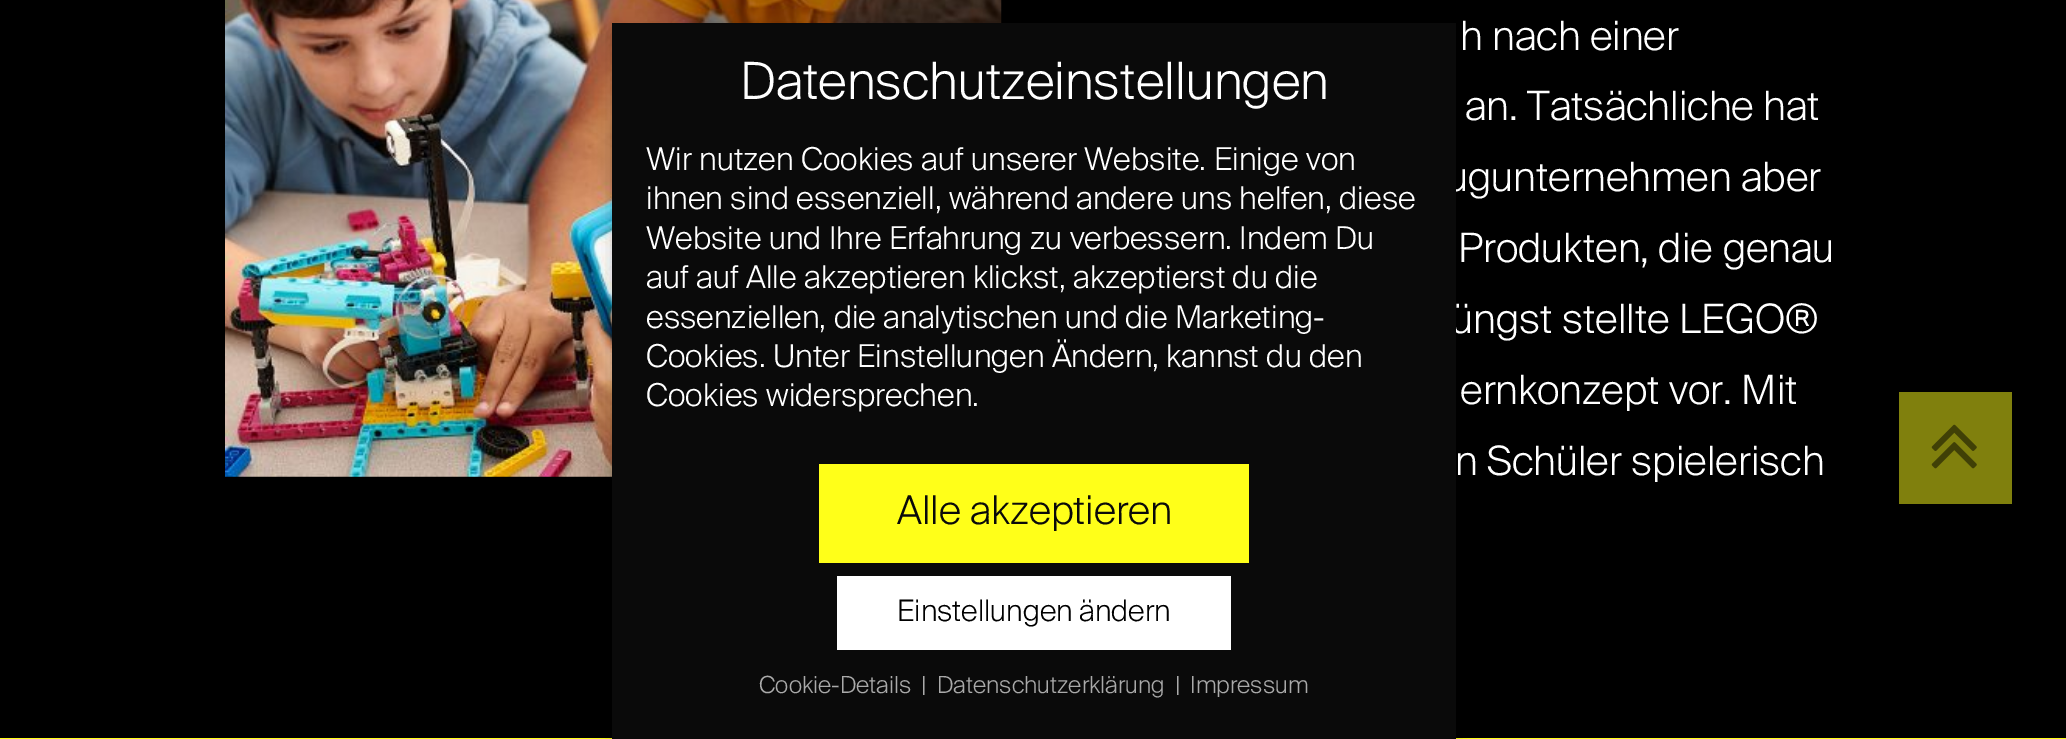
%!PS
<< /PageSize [2066 739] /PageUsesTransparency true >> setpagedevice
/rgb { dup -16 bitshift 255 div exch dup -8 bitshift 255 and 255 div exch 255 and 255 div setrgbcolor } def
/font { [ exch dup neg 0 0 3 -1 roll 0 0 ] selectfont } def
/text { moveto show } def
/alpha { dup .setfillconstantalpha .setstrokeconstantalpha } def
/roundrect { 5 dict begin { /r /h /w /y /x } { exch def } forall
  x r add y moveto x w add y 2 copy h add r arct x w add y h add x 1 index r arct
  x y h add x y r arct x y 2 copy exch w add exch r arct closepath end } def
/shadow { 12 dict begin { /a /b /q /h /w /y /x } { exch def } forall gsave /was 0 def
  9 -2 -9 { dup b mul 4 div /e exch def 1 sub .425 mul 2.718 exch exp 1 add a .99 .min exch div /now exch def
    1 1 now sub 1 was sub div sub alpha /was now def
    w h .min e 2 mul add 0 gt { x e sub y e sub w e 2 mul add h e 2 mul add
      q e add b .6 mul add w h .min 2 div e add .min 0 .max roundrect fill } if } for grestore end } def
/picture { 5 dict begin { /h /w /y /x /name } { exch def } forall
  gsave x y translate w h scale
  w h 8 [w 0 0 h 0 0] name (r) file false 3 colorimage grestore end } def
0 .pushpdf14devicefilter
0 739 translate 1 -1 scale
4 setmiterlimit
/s1 { /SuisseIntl-Light 40.5 font 16#FFFFFF rgb } def
/s2 { /SuisseIntl-Light 51.25 font 16#FFFFFF rgb } def
/s3 { /SuisseIntl-Light 31.5 font 16#FFFFFF rgb } def
/s4 { /SuisseIntl-Light 39.5 font 16#0A0A0A rgb } def
/s5 { /SuisseIntl-Light 29.5 font 16#000000 rgb } def
/s6 { /SuisseIntl-Light 23.6 font 16#AAAAAA rgb } def
16#000000 rgb
0 0 2066 739 rectfill
(pic1.raw) 225 0 777 477 picture
16#FFFF19 rgb
0 738 2066 1 rectfill
16#000000 rgb
612 32 844 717 0 9 0.2 shadow
s1
(ugunternehmen aber) 1446 191 text
(üngst stellte LEGO®) 1451 333 text
16#0A0A0A rgb
612 23 844 716 rectfill
s2
(Datenschutzeinstellungen) 740 99 text
s3
(Wir nutzen Cookies auf unserer Website. Einige von) 646 170 text
(ihnen sind essenziell, während andere uns helfen, diese) 646 209 text
(Website und Ihre Erfahrung zu verbessern. Indem Du) 646 249 text
(auf auf Alle akzeptieren klickst, akzeptierst du die) 646 288 text
(essenziellen, die analytischen und die Marketing-) 646 328 text
(Cookies. Unter Einstellungen Ändern, kannst du den) 646 367 text
(Cookies widersprechen.) 646 406 text
16#FFFF19 rgb
819 464 430 99 rectfill
s4
(Alle akzeptieren) 897 524 text
16#FFFFFF rgb
837 576 394 74 rectfill
s5
(Einstellungen ändern) 897 621 text
s6
(Cookie-Details) 759 693 text
(|) 921 693 text
(Datenschutzerklärung) 937 693 text
(|) 1175 693 text
(Impressum) 1190 693 text
s1
(h nach einer) 1460 50 text
(an. Tatsächliche hat) 1465 120 text
(Produkten, die genau) 1458 262 text
(ernkonzept vor. Mit) 1460 404 text
(n Schüler spielerisch) 1455 475 text
16#80800D rgb
1899 392 113 112 rectfill
(pic2.raw) 1931 424 46 45 picture
.poppdf14devicefilter showpage
